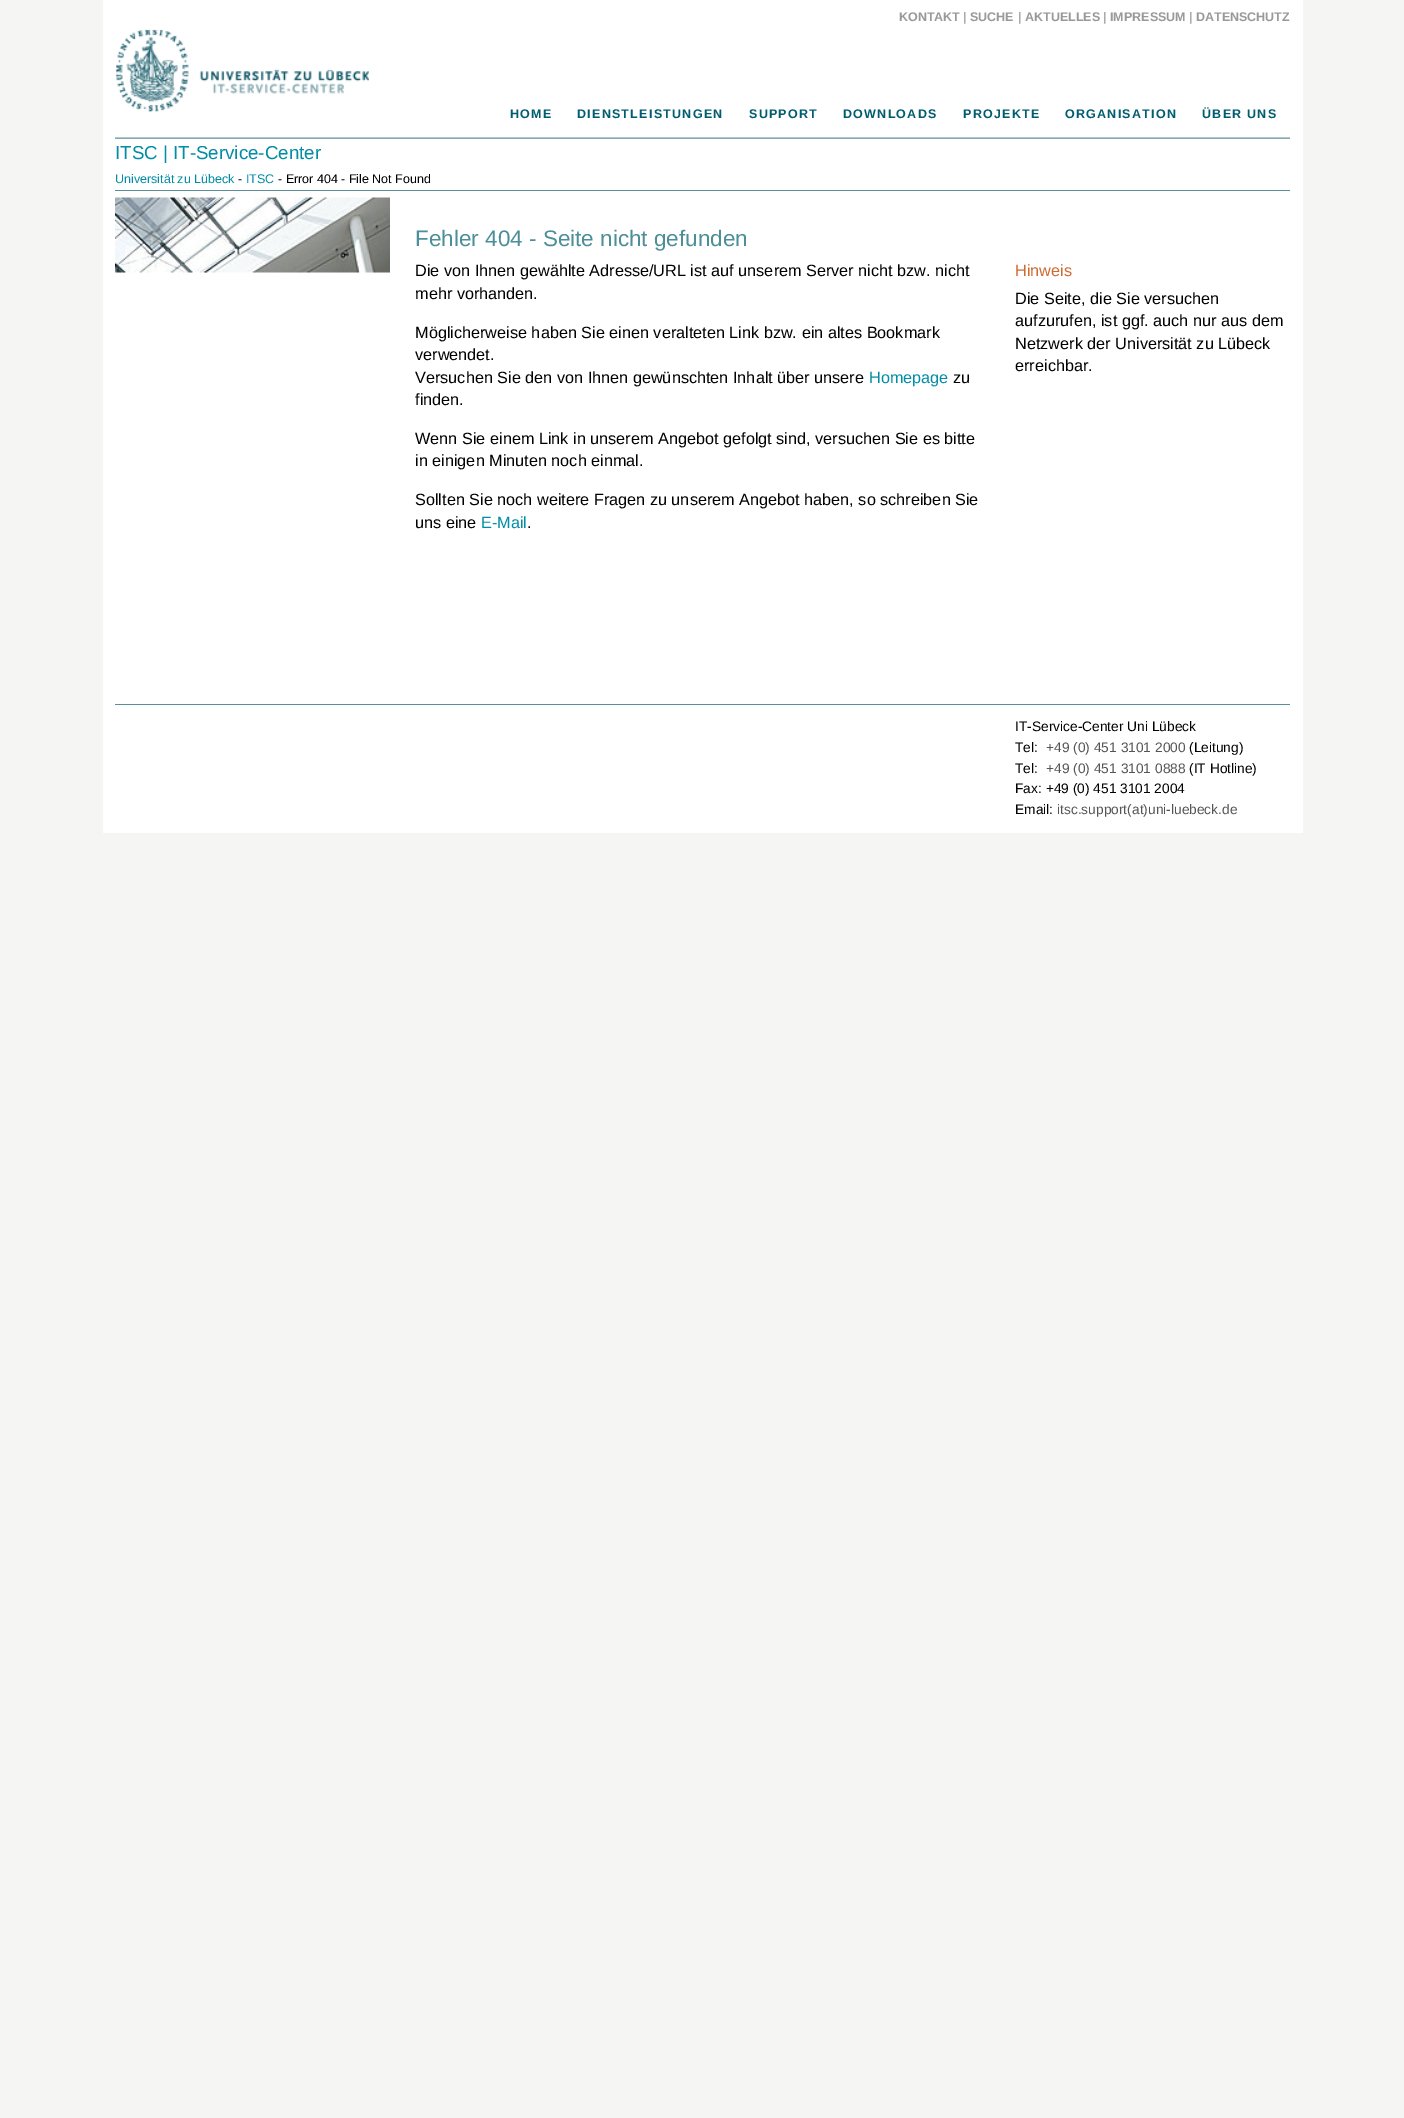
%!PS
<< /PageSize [1404 2118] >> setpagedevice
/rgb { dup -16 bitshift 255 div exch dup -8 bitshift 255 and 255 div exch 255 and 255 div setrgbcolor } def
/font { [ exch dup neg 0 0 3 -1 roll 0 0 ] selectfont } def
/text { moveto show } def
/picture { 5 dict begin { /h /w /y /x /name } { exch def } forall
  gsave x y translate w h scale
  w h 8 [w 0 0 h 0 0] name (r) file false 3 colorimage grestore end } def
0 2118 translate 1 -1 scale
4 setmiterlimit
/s1 { /LiberationSans-Bold 12.5 font 16#999999 rgb } def
/s2 { /LiberationSans-Bold 12.5 font 16#AAAAAA rgb } def
/s3 { /LiberationSans-Regular 18.75 font 16#008DA5 rgb } def
/s4 { /LiberationSans-Regular 12.5 font 16#008DA5 rgb } def
/s5 { /LiberationSans-Regular 12.5 font 16#000000 rgb } def
/s6 { /LiberationSans-Regular 22.5 font 16#4C8F99 rgb } def
/s7 { /LiberationSans-Regular 16.25 font 16#000000 rgb } def
/s8 { /LiberationSans-Regular 16.25 font 16#008DA5 rgb } def
/s9 { /LiberationSans-Regular 16.25 font 16#CE6932 rgb } def
/s10 { /LiberationSans-Regular 13.75 font 16#000000 rgb } def
/s11 { /LiberationSans-Regular 13.75 font 16#555555 rgb } def
16#F5F6F3 rgb
0 0 1404 2118 rectfill
16#FFFFFF rgb
103 0 1200 833 rectfill
s1
(KONTAKT) 899 21 text
s2
(|) 963 21 text
s1
(SUCHE) 970 21 text
s2
(|) 1018 21 text
s1
(AKTUELLES) 1025 21 text
s2
(|) 1103 21 text
s1
(IMPRESSUM) 1110 21 text
s2
(|) 1189 21 text
s1
(DATENSCHUTZ) 1196 21 text
(pic1.raw) 116 29 253 83 picture
(pic2.raw) 115 137 1175 2 picture
16#005D6F rgb
510 118 moveto 1.25 0 (HOME) ashow
577 118 moveto 1.25 0 (DIENSTLEISTUNGEN) ashow
749 118 moveto 1.25 0 (SUPPORT) ashow
843 118 moveto 1.25 0 (DOWNLOADS) ashow
963 118 moveto 1.25 0 (PROJEKTE) ashow
1065 118 moveto 1.25 0 (ORGANISATION) ashow
1202 118 moveto 1.25 0 (ÜBER UNS) ashow
s3
(ITSC | IT-Service-Center) 115 159 text
16#5C8F99 rgb
115 190 1175 1 rectfill
s4
(Universität zu Lübeck) 115 183 text
s5
(-) 238 183 text
s4
(ITSC) 246 183 text
s5
(- Error 404 - File Not Found) 278 183 text
(pic3.raw) 115 197 275 76 picture
s6
(Fehler 404 - Seite nicht gefunden) 415 246 text
s7
(Die von Ihnen gewählte Adresse/URL ist auf unserem Server nicht bzw. nicht) 415 276 text
(mehr vorhanden.) 415 299 text
(Möglicherweise haben Sie einen veralteten Link bzw. ein altes Bookmark) 415 338 text
(verwendet.) 415 360 text
(Versuchen Sie den von Ihnen gewünschten Inhalt über unsere) 415 383 text
s8
(Homepage) 869 383 text
s7
(zu) 953 383 text
(finden.) 415 405 text
(Wenn Sie einem Link in unserem Angebot gefolgt sind, versuchen Sie es bitte) 415 444 text
(in einigen Minuten noch einmal.) 415 466 text
(Sollten Sie noch weitere Fragen zu unserem Angebot haben, so schreiben Sie) 415 505 text
(uns eine) 415 528 text
s8
(E-Mail) 481 528 text
s7
(.) 527 528 text
s9
(Hinweis) 1015 276 text
s7
(Die Seite, die Sie versuchen) 1015 304 text
(aufzurufen, ist ggf. auch nur aus dem) 1015 326 text
(Netzwerk der Universität zu Lübeck) 1015 349 text
(erreichbar.) 1015 371 text
16#5C8F99 rgb
115 704 1175 1 rectfill
s10
(IT-Service-Center Uni Lübeck) 1015 731 text
(Tel:) 1015 752 text
s11
(+49 \(0\) 451 3101 2000) 1046 752 text
s10
(\(Leitung\)) 1189 752 text
(Tel:) 1015 773 text
s11
(+49 \(0\) 451 3101 0888) 1046 773 text
s10
(\(IT Hotline\)) 1189 773 text
(Fax: +49 \(0\) 451 3101 2004) 1015 793 text
(Email:) 1015 814 text
s11
(itsc.support\(at\)uni-luebeck.de) 1057 814 text
showpage
